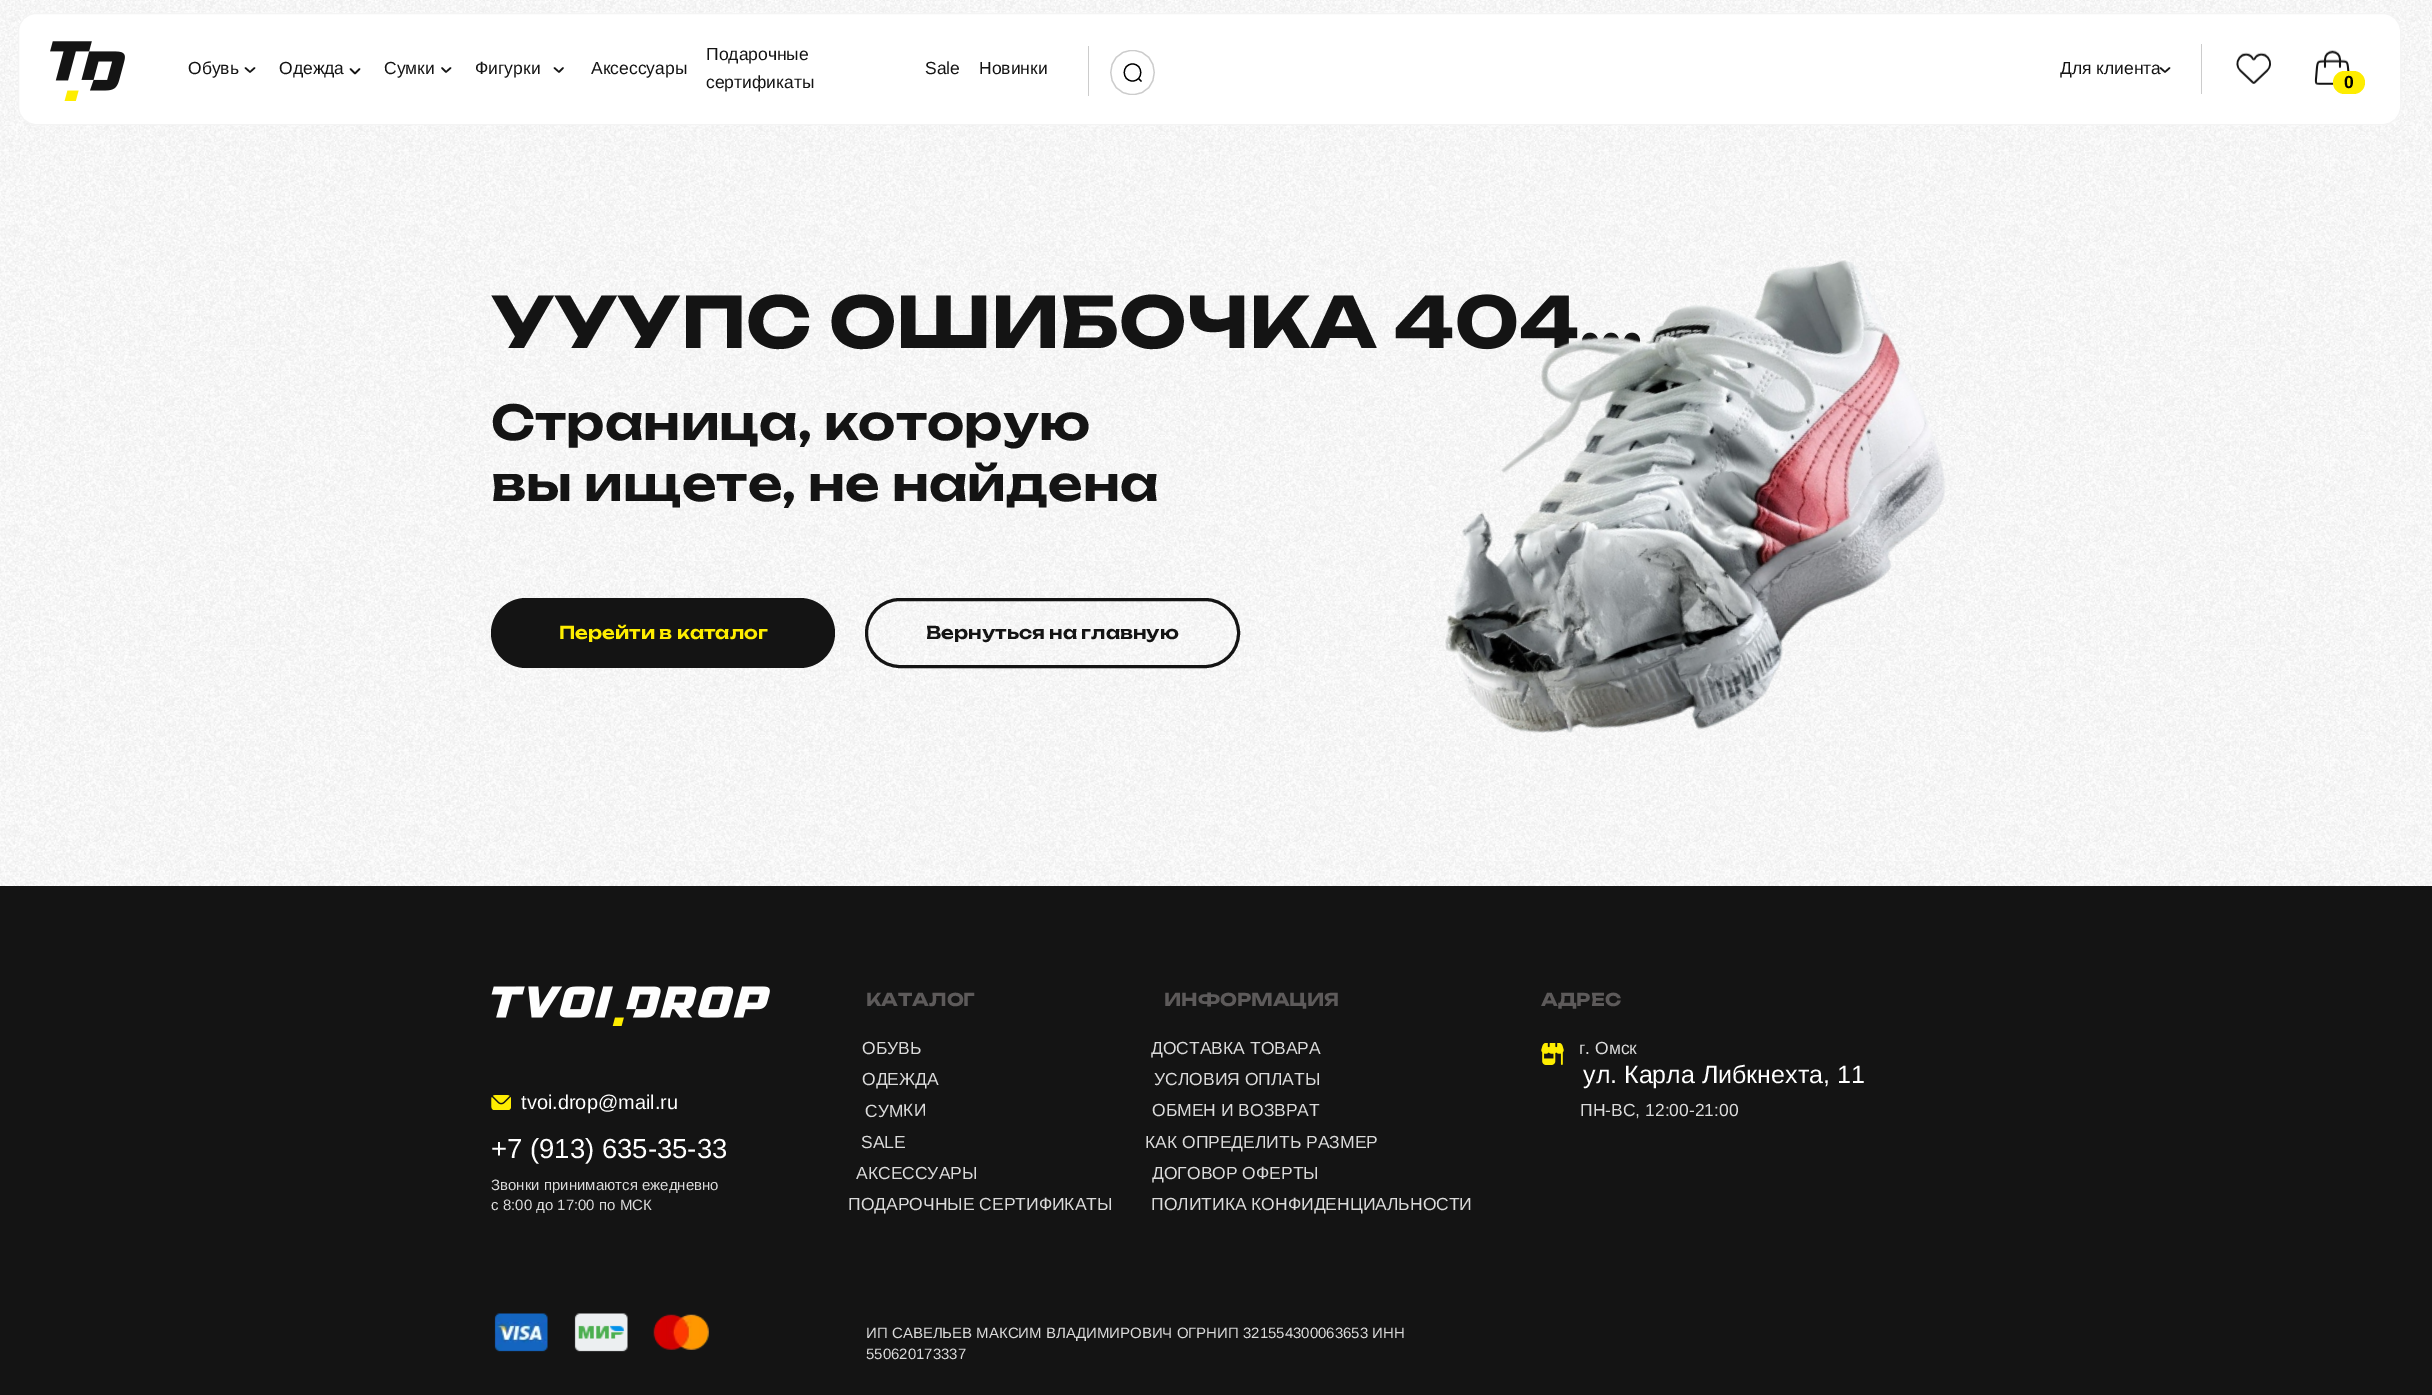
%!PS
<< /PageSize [2432 1395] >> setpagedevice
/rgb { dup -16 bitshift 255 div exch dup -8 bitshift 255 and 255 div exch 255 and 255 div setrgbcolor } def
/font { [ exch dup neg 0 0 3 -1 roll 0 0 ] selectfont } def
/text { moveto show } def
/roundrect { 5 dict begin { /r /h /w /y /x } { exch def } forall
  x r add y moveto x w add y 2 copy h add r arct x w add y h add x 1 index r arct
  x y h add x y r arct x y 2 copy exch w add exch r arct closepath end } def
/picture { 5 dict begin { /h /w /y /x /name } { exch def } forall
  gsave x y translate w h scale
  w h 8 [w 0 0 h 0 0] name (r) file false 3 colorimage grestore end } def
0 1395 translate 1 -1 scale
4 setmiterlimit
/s1 { /LiberationSans-Regular 17.5 font 16#141414 rgb } def
/s2 { /LiberationSans-Bold 17.5 font 16#000000 rgb } def
/s3 { /Unbounded-Bold 70 font 16#141414 rgb } def
/s4 { /Unbounded-SemiBold 47.5 font 16#141414 rgb } def
/s5 { /Unbounded-SemiBold 17.5 font 16#FEED00 rgb } def
/s6 { /Unbounded-SemiBold 17.5 font 16#141414 rgb } def
/s7 { /Unbounded-Bold 17.5 font 16#5D5A5A rgb } def
/s8 { /LiberationSans-Regular 17.5 font 16#DBDBDB rgb } def
/s9 { /LiberationSans-Regular 25 font 16#FFFFFF rgb } def
/s10 { /LiberationSans-Regular 20 font 16#FFFFFF rgb } def
/s11 { /LiberationSans-Regular 27.5 font 16#FFFFFF rgb } def
/s12 { /LiberationSans-Regular 15 font 16#DBDBDB rgb } def
16#FFFFFF rgb
0 0 2432 1395 rectfill
(pic4.raw) 0 0 2432 886 picture
18.5 13.5 2382 111 17.5 roundrect gsave fill grestore
16#F4F4F4 rgb
stroke
(pic1.raw) 50 41 75 60 picture
s1
(Обувь) 188 74 text
1.5 setlinewidth
1 setlinecap
1 setlinejoin
245.5 68 moveto 250 72 lineto 254.5 68 lineto stroke
(Одежда) 279 74 text
350.5 69 moveto 355 73.5 lineto 359.5 69 lineto stroke
(Сумки) 384 74 text
442 68 moveto 446 72 lineto 450.5 68 lineto stroke
(Фигурки) 475 74 text
554.5 68 moveto 559 72 lineto 563 68 lineto stroke
(Аксессуары) 591 74 text
(Подарочные) 706 60 text
(сертификаты) 706 88 text
(Sale) 925 74 text
(Новинки) 979 74 text
16#CCCCCC rgb
1088 46 1 50 rectfill
gsave
1110 50 45 45 rectclip
1.2 setlinewidth
0 setlinecap
0 setlinejoin
1132.5 94.5 moveto 1161.5 94.5 1161.5 50.5 1132.5 50.5 curveto 1103.5 50.5 1103.5 94.5 1132.5 94.5 curveto closepath stroke
grestore
16#000000 rgb
1.2 setlinewidth
0 setlinecap
0 setlinejoin
1132.5 81 moveto 1143.5 81 1143.5 64 1132.5 64 curveto 1121.5 64 1121.5 81 1132.5 81 curveto closepath 1138.5 78.5 moveto 1141.5 81.5 lineto stroke
16#141414 rgb
1.5 setlinewidth
1 setlinecap
1 setlinejoin
2160.5 68 moveto 2165 72 lineto 2169.5 68 lineto stroke
(Для клиента) 2060 74 text
16#CCCCCC rgb
2201 44 1 50 rectfill
(pic2.raw) 2236 52 35 32 picture
(pic3.raw) 2314 50 36 35 picture
16#FEED00 rgb
2333 71 32 23 11.5 roundrect fill
s2
(0) 2344 88 text
s3
(УУУПС ОШИБОЧКА 404) 491 348 text
(pic5.raw) 1445 260 500 473 picture
s4
(Страница, которую) 491 440 text
(вы ищете, не найдена) 491 501 text
491 598 344 70 35 roundrect fill
s5
(Перейти в каталог) 559 639 text
16#141414 rgb
3 setlinewidth
0 setlinecap
0 setlinejoin
866.5 599.5 372 67 33.5 roundrect stroke
(Вернуться на главную) 926 639 text
0 886 2432 509 rectfill
(pic6.raw) 491 986 279 40 picture
s7
(КАТАЛОГ) 866 1006 text
(ИНФОРМАЦИЯ) 1164 1006 text
(АДРЕС) 1541 1006 text
s8
(ОБУВЬ) 862 1054 text
(ДОСТАВКА ТОВАРА) 1151 1054 text
(pic7.raw) 1541 1043 23 22 picture
(г. Омск) 1579 1054 text
(ОДЕЖДА) 862 1085 text
(УСЛОВИЯ ОПЛАТЫ) 1154 1085 text
s9
(ул. Карла Либкнехта, 11) 1583 1083 text
(pic8.raw) 491 1095 20 15 picture
s10
(tvoi.drop@mail.ru) 521 1109 text
/LiberationSans-Regular 17.5 font
16#DBDBDB rgb
gsave 865 1117 translate -1 rotate 0 0 moveto (СУМКИ) show grestore
(ОБМЕН И ВОЗВРАТ) 1152 1116 text
(ПН-ВС, 12:00-21:00) 1580 1116 text
s11
(+7 \(913\) 635-35-33) 491 1158 text
s8
(SALE) 861 1148 text
(КАК ОПРЕДЕЛИТЬ РАЗМЕР) 1145 1148 text
(АКСЕССУАРЫ) 856 1179 text
(ДОГОВОР ОФЕРТЫ) 1152 1179 text
s12
(Звонки принимаются ежедневно) 491 1190 text
(с 8:00 до 17:00 по МСК) 491 1210 text
s8
(ПОДАРОЧНЫЕ СЕРТИФИКАТЫ) 848 1210 text
(ПОЛИТИКА КОНФИДЕНЦИАЛЬНОСТИ) 1151 1210 text
(pic9.raw) 494 1313 54 39 picture
(pic10.raw) 574 1313 54 39 picture
(pic11.raw) 653 1314 56 36 picture
s12
(ИП САВЕЛЬЕВ МАКСИМ ВЛАДИМИРОВИЧ ОГРНИП 321554300063653 ИНН) 866 1338 text
(550620173337) 866 1359 text
showpage
